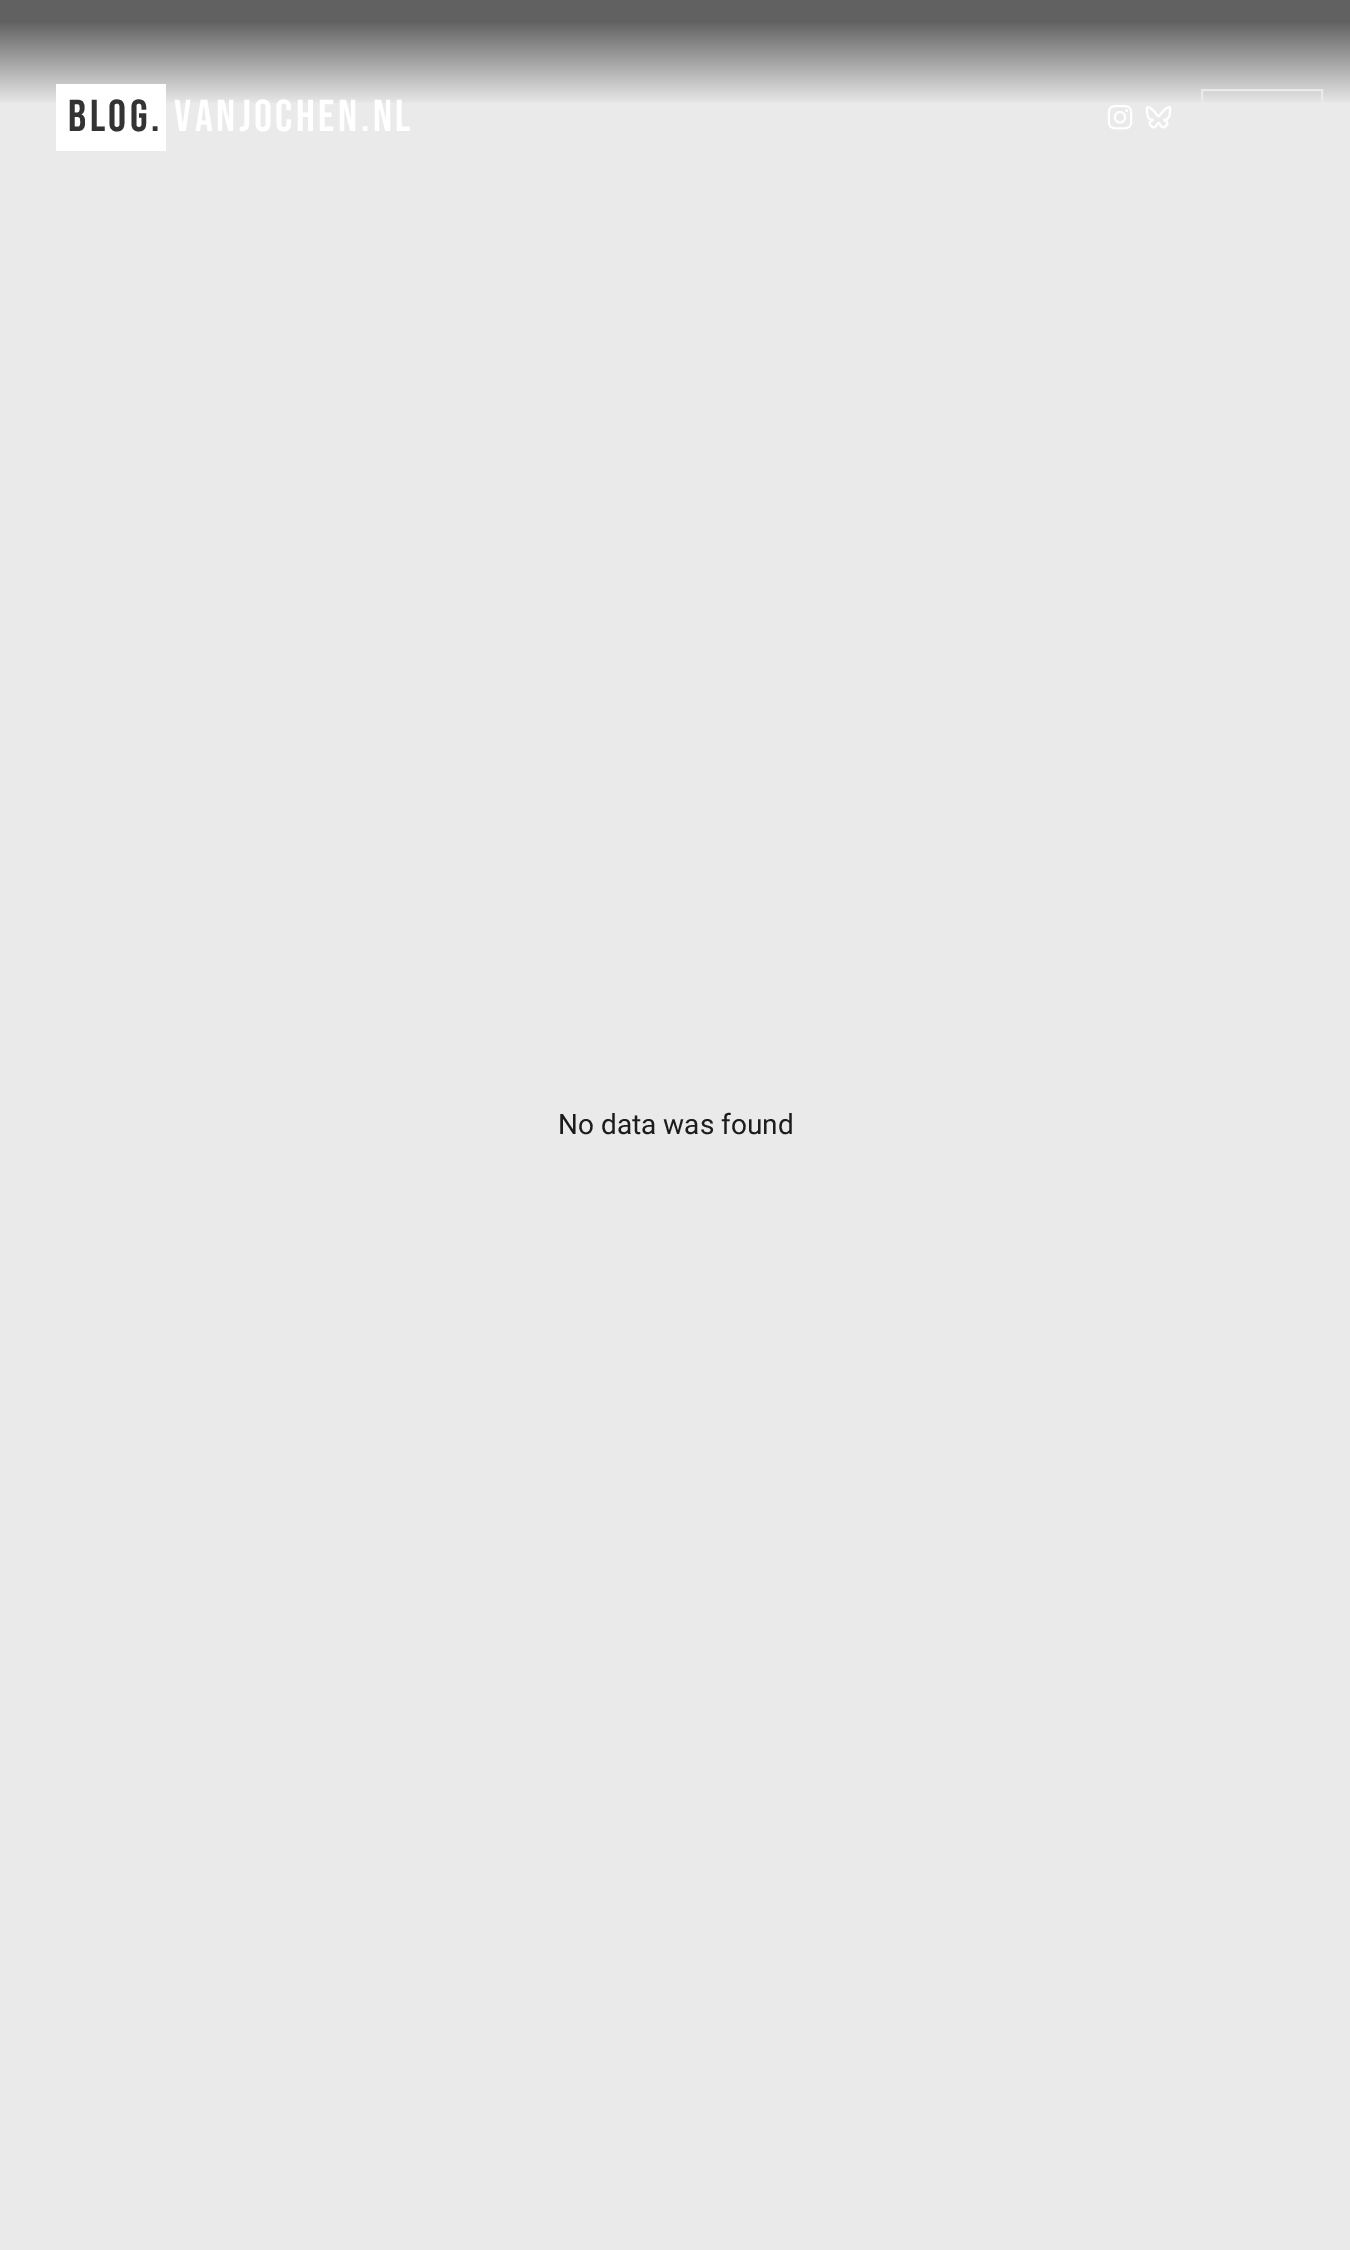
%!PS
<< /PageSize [1350 2250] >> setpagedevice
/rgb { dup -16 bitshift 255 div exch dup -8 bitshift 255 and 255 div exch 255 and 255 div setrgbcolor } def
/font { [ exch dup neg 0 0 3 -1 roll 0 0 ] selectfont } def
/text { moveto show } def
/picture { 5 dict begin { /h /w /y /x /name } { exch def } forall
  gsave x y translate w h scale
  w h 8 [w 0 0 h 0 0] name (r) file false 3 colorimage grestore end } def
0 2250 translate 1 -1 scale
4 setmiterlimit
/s1 { /Roboto-Regular 28 font 16#1C1C1C rgb } def
16#EAEAEA rgb
0 0 1350 2250 rectfill
gsave 0 0 moveto 1350 0 lineto 1350 103 lineto 0 103 lineto closepath clip newpath
<< /ShadingType 2 /ColorSpace /DeviceRGB /Coords [676 0 676 105] /Extend [true true] /Function << /FunctionType 3 /Domain [0 1] /Functions [<< /FunctionType 2 /Domain [0 1] /C0 [0.38 0.38 0.38] /C1 [0.38 0.38 0.38] /N 1 >> << /FunctionType 2 /Domain [0 1] /C0 [0.38 0.38 0.38] /C1 [0.918 0.918 0.918] /N 1 >>] /Bounds [0.2] /Encode [0 1 0 1] >> >> shfill grestore
16#FFFFFF rgb
56 84 110 67 rectfill
/BebasNeue-Regular 44.75 font
16#333333 rgb
68 131 moveto 3.5 0 (BLOG.) ashow
16#FFFFFF rgb
174 131 moveto 3.5 0 (VANJOCHEN.NL) ashow
(pic1.raw) 1107 105 26 25 picture
(pic2.raw) 1145 106 27 23 picture
16#EAEAEA rgb
2 setlinewidth
1202 90 120 53 rectstroke
s1
(No data was found) 558 1134 text
showpage
